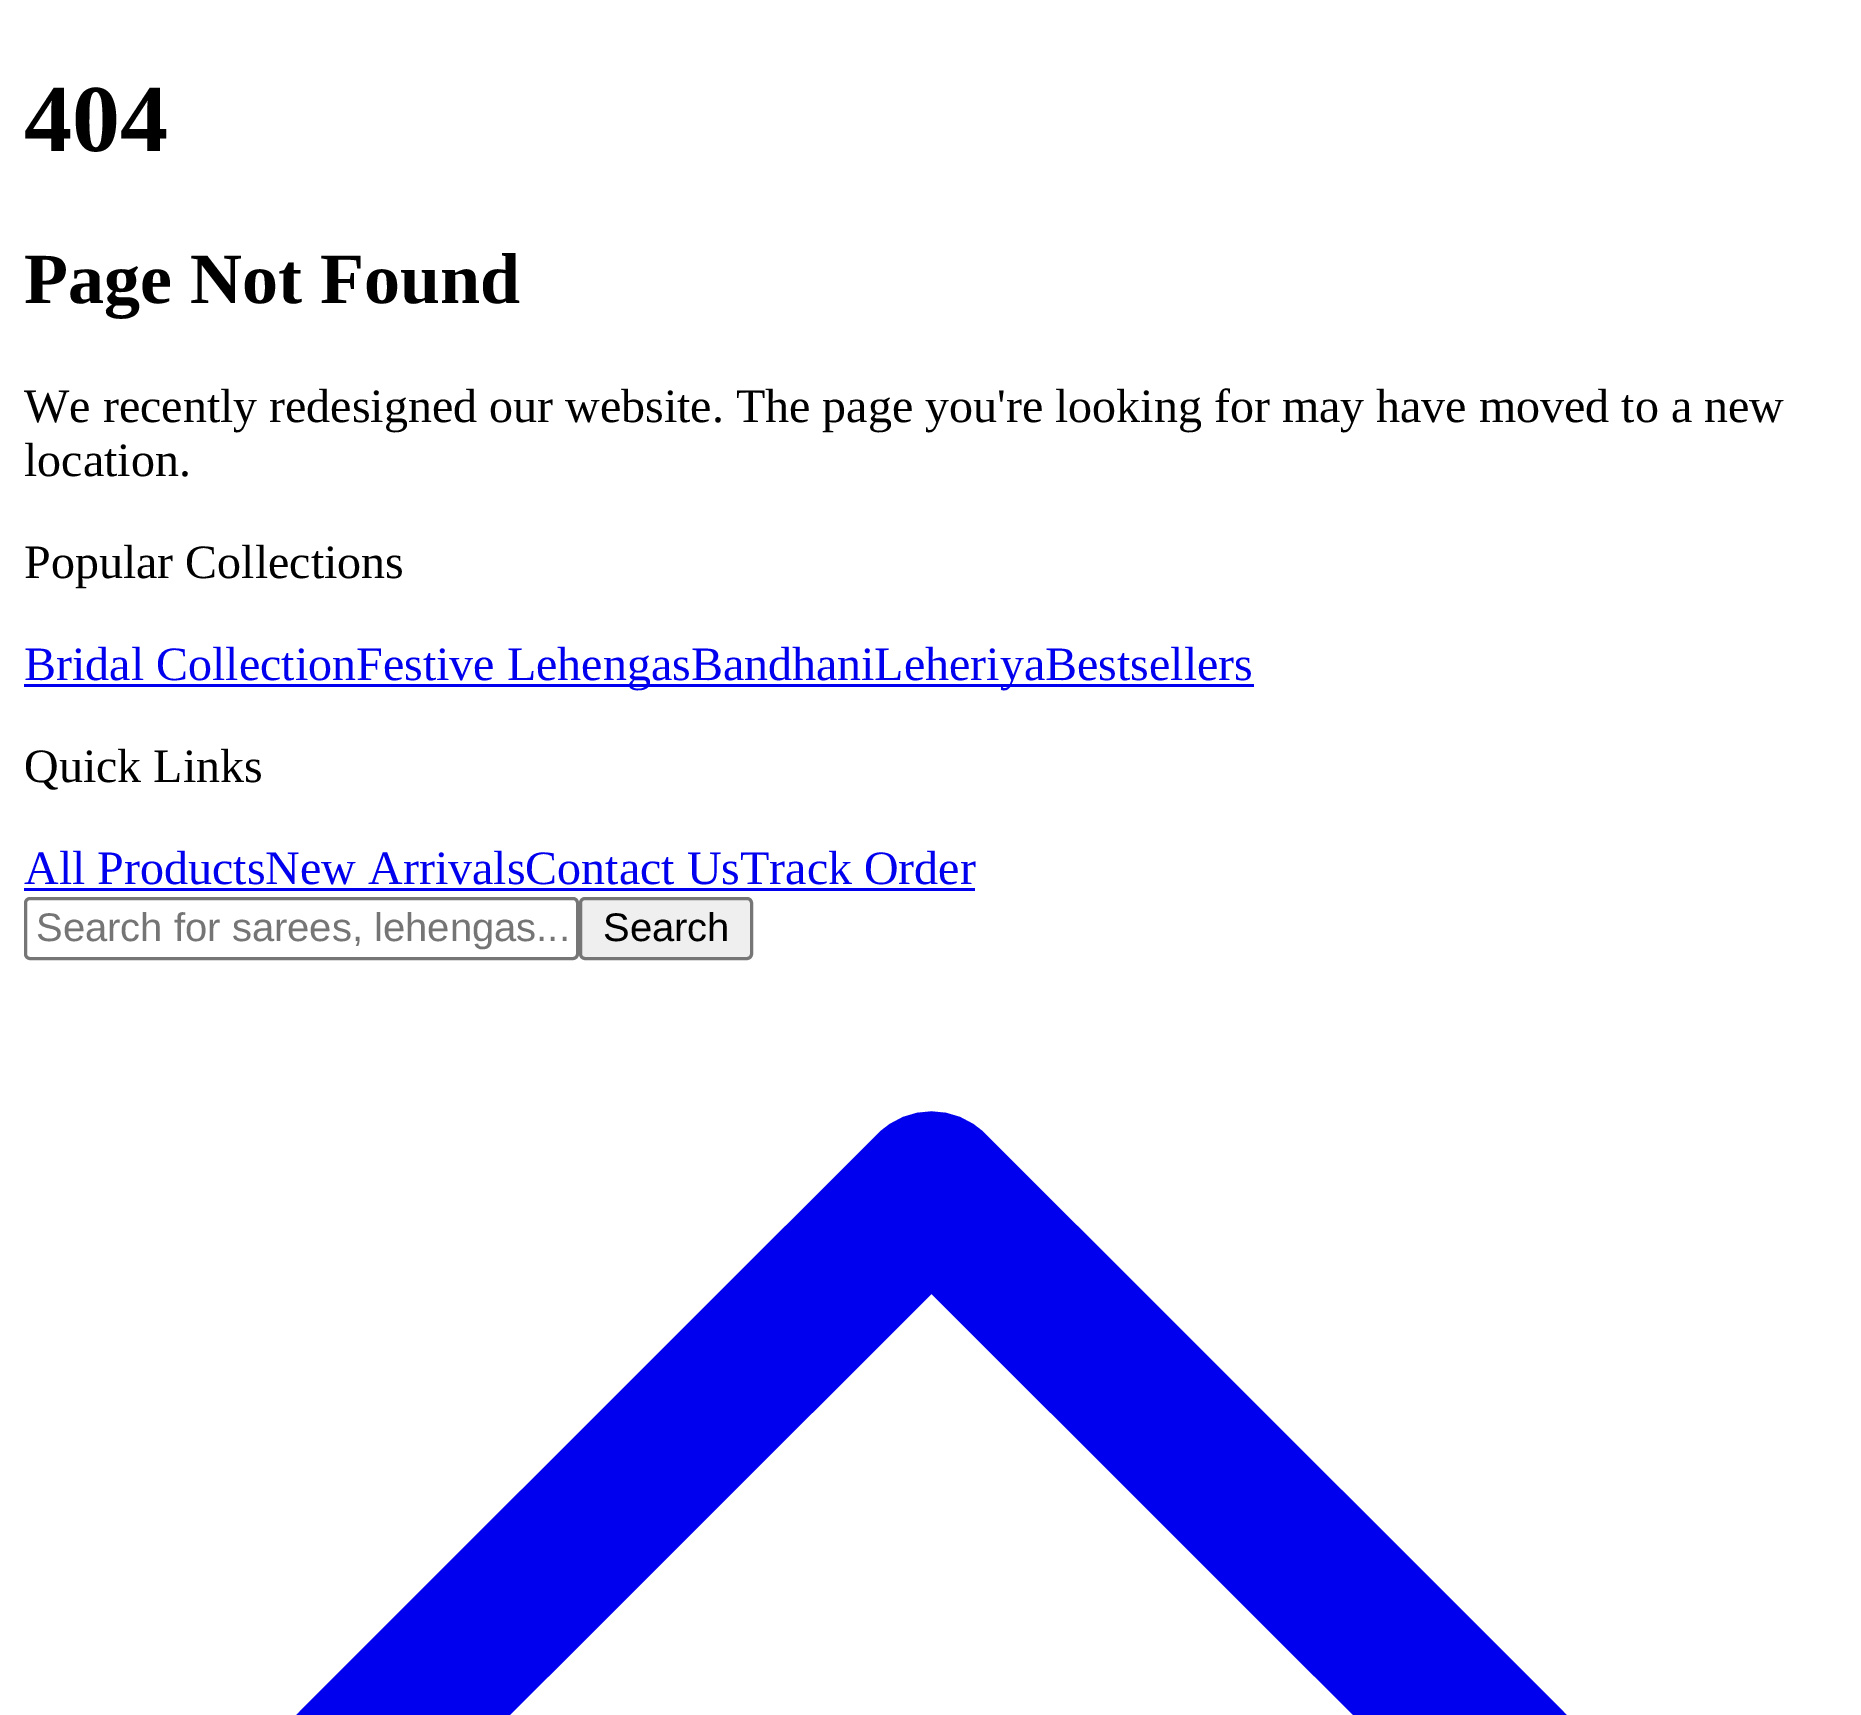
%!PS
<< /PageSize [1861 1715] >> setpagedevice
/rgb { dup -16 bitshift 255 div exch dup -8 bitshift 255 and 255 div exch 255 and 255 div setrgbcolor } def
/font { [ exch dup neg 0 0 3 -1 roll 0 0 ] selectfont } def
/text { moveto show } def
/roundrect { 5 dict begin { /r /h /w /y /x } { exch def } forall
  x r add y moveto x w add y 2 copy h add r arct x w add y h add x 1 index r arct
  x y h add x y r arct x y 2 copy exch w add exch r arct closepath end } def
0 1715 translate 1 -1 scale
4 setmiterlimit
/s1 { /LiberationSerif-Bold 96 font 16#000000 rgb } def
/s2 { /LiberationSerif-Bold 72 font 16#000000 rgb } def
/s3 { /LiberationSerif-Regular 48 font 16#000000 rgb } def
/s4 { /LiberationSerif-Regular 48 font 16#0000EE rgb } def
/s5 { /LiberationSans-Regular 40 font 16#757575 rgb } def
/s6 { /LiberationSans-Regular 40 font 16#000000 rgb } def
16#FFFFFF rgb
0 0 1861 1715 rectfill
s1
(404) 24 151 text
s2
(Page Not Found) 24 303 text
s3
(We recently redesigned our website. The page you're looking for may have moved to a new) 24 422 text
(location.) 24 476 text
(Popular Collections) 24 578 text
16#0000EE rgb
24 684 1020 3 rectfill
(Bridal CollectionFestive LehengasBandhaniLeheriyaBestsellers) 24 680 text
1044 684 210 3 rectfill
s3
(Quick Links) 24 782 text
s4
(All ProductsNew ArrivalsContact UsTrack Order) 24 884 text
24 888 951 3 rectfill
16#767676 rgb
3 setlinewidth
25.5 898.5 552 60 4.5 roundrect stroke
s5
(Search for sarees, lehengas...) 36 941 text
16#EFEFEF rgb
580.5 898.5 171 60 4.5 roundrect gsave fill grestore
16#767676 rgb
stroke
s6
(Search) 603 941 text
16#0000EE rgb
151.2 setlinewidth
1 setlinecap
1 setlinejoin
251 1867.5 moveto 402 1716 lineto 402 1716 moveto 931.5 1187 lineto 1461 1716 lineto 402 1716 moveto 402 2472.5 lineto 402 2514.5 436 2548 478 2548 curveto 704.5 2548 lineto 1461 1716 moveto 1612 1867.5 lineto 1461 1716 moveto 1461 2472.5 lineto 1461 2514.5 1427 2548 1385 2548 curveto 1158.5 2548 lineto 704.5 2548 moveto 746.5 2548 780 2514.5 780 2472.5 curveto 780 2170 lineto 780 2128 814 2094.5 856 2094.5 curveto 1007 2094.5 lineto 1049 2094.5 1083 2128 1083 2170 curveto 1083 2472.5 lineto 1083 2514.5 1116.5 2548 1158.5 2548 curveto 704.5 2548 moveto 1158.5 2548 lineto stroke
showpage
